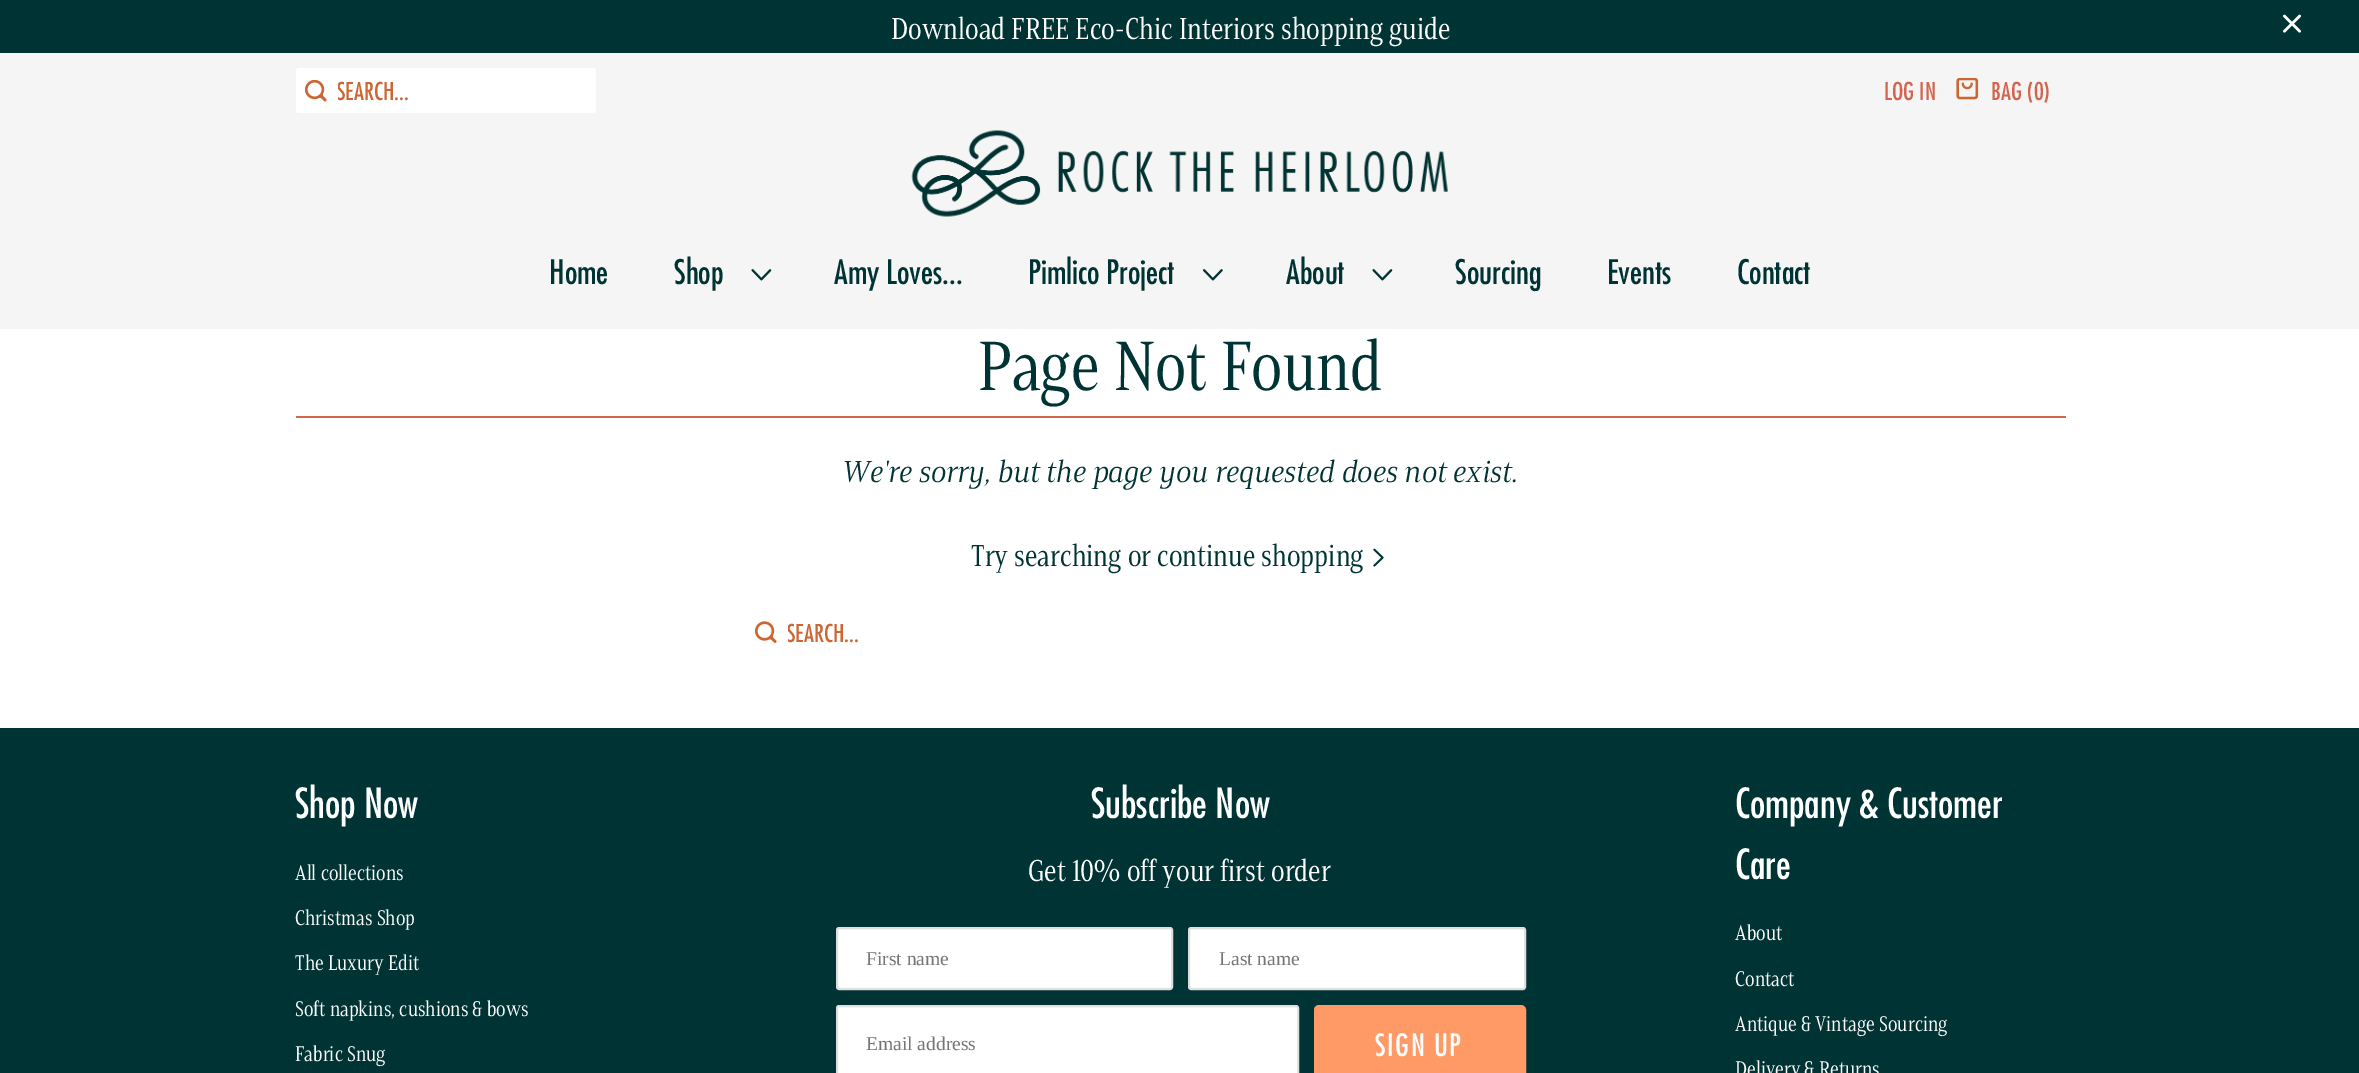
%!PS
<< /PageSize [2359 1073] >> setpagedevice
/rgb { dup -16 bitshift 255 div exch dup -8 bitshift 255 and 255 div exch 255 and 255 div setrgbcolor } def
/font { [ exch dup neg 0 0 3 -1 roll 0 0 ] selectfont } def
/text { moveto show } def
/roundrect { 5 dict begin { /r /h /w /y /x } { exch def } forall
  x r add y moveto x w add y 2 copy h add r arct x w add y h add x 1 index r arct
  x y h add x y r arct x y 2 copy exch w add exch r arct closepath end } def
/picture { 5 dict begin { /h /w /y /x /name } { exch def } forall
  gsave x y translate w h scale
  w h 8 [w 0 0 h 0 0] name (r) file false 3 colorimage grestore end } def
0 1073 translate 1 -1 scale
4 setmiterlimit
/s1 { /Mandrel-Medium 30 font 16#FFFFFF rgb } def
/s2 { /Futura-Regular 24 font 16#CC6633 rgb } def
/s3 { /Futura-Regular 24 font 16#D3644E rgb } def
/s4 { /Futura-Regular 33 font 16#003333 rgb } def
/s5 { /Mandrel-Medium 69 font 16#003333 rgb } def
/s6 { /Mandrel-MediumItalic 30 font 16#003333 rgb } def
/s7 { /Mandrel-Medium 30 font 16#003333 rgb } def
/s8 { /Futura-Regular 40.5 font 16#FFFFFF rgb } def
/s9 { /Mandrel-Medium 21 font 16#FFFFFF rgb } def
/s10 { /LiberationSerif-Regular 19.5 font 16#757575 rgb } def
16#FFFFFF rgb
0 0 2359 1073 rectfill
16#F5F5F5 rgb
0 53 2359 276 rectfill
16#003333 rgb
0 0 2359 53 rectfill
s1
(Download FREE Eco-Chic Interiors shopping guide) 891 39 text
(pic1.raw) 2283 14 18 19 picture
296 68 300 45 3 roundrect fill
(pic2.raw) 305 80 22 22 picture
gsave
338 77 228 28 rectclip
s2
(SEARCH...) 337 100 text
grestore
s3
(LOG IN) 1884 100 text
(pic3.raw) 1956 78 23 22 picture
(BAG \(0\)) 1991 100 text
(pic4.raw) 911 130 538 87 picture
s4
(Home) 549 284 text
(Shop) 674 284 text
(pic5.raw) 751 269 21 12 picture
(Amy Loves...) 834 284 text
(Pimlico Project) 1028 284 text
(pic6.raw) 1203 269 20 12 picture
(About) 1286 284 text
(pic5.raw) 1372 269 21 12 picture
(Sourcing) 1455 284 text
(Events) 1607 284 text
(Contact) 1737 284 text
16#D3644E rgb
296 416 1770 2 rectfill
s5
(Page Not Found) 978 390 text
s6
(We're sorry, but the page you requested does not exist.) 842 482 text
s7
(Try searching or continue shopping) 971 566 text
(pic7.raw) 1373 548 11 19 picture
(pic8.raw) 755 621 22 22 picture
gsave
788 618 798 29 rectclip
s2
(SEARCH...) 787 642 text
grestore
0 728 2359 345 rectfill
s8
(Shop Now) 295 818 text
s9
(All collections) 295 880 text
(Christmas Shop) 295 925 text
(The Luxury Edit) 295 970 text
(Soft napkins, cushions & bows) 295 1016 text
(Fabric Snug) 295 1061 text
s8
(Subscribe Now) 1091 818 text
s1
(Get 10% off your first order) 1028 881 text
837 928 335 61 2 roundrect gsave fill grestore
16#DFDFDF rgb
2 setlinewidth
stroke
s10
(First name) 866 965 text
16#FFFFFF rgb
1189 928 336 61 2 roundrect gsave fill grestore
16#DFDFDF rgb
stroke
s10
(Last name) 1219 965 text
16#FFFFFF rgb
837 1006 461 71 2 roundrect gsave fill grestore
16#DFDFDF rgb
stroke
s10
(Email address) 866 1050 text
16#FF9966 rgb
1315 1006 210 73 4 roundrect gsave fill grestore
stroke
/Futura-Regular 30 font
16#FFFFFF rgb
1375 1056 moveto 1.5 0 (SIGN UP) ashow
s8
(Company & Customer) 1735 818 text
(Care) 1735 879 text
s9
(About) 1735 940 text
(Contact) 1735 986 text
(Antique & Vintage Sourcing) 1735 1031 text
(Delivery & Returns) 1735 1076 text
showpage
